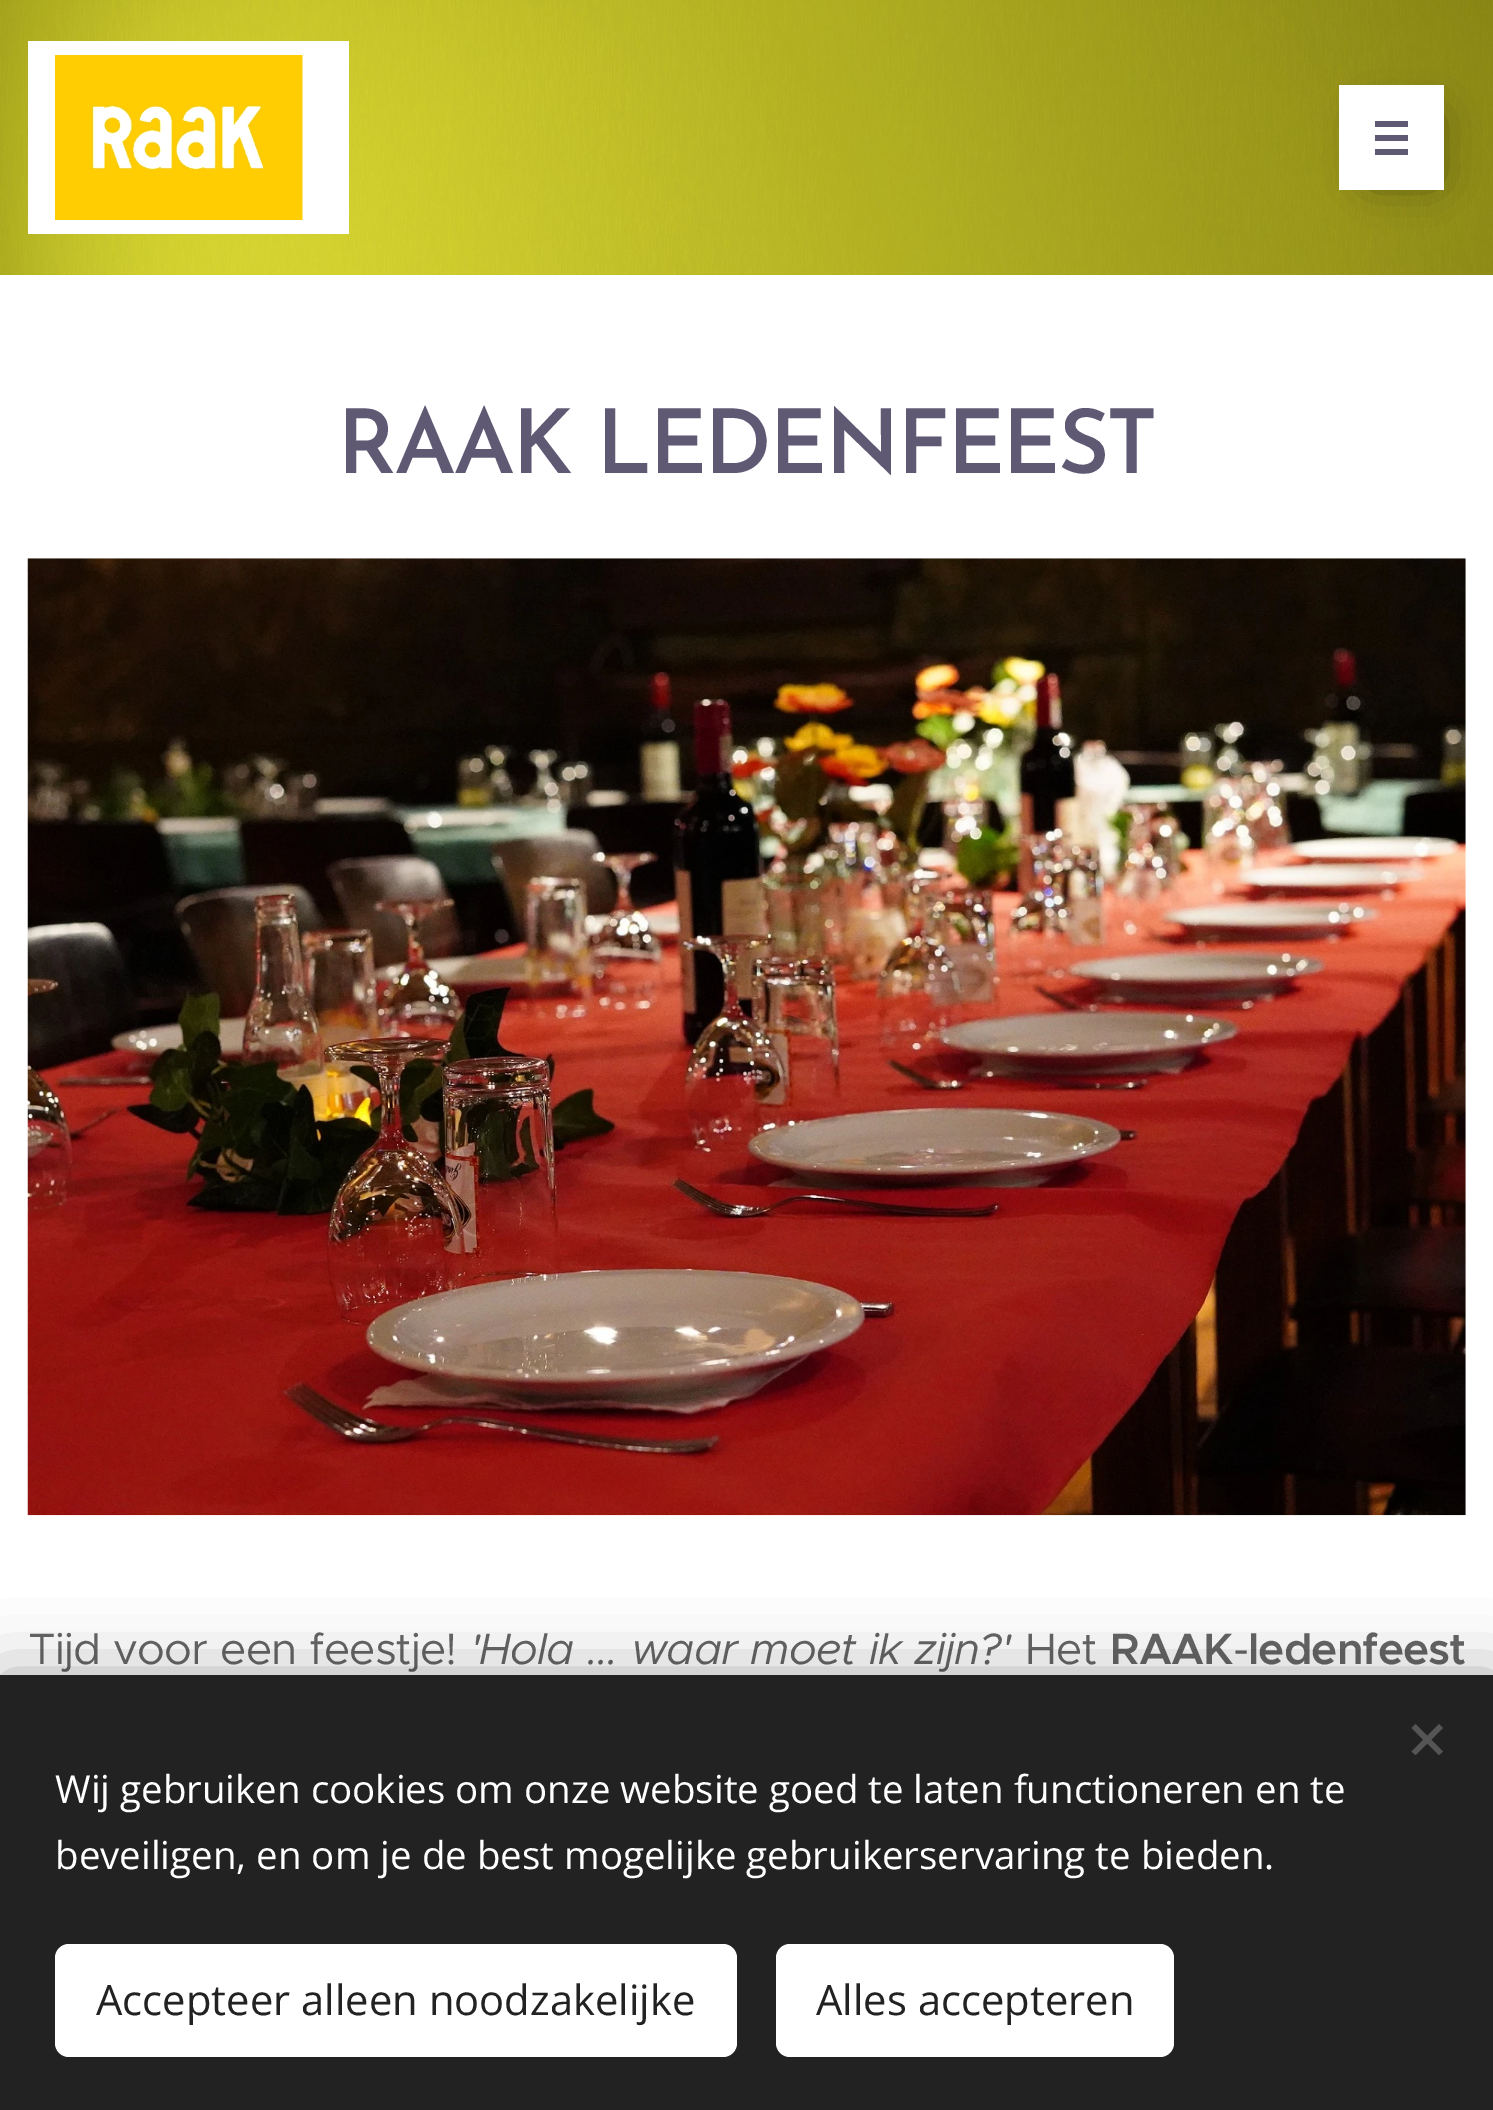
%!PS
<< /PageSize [1493 2110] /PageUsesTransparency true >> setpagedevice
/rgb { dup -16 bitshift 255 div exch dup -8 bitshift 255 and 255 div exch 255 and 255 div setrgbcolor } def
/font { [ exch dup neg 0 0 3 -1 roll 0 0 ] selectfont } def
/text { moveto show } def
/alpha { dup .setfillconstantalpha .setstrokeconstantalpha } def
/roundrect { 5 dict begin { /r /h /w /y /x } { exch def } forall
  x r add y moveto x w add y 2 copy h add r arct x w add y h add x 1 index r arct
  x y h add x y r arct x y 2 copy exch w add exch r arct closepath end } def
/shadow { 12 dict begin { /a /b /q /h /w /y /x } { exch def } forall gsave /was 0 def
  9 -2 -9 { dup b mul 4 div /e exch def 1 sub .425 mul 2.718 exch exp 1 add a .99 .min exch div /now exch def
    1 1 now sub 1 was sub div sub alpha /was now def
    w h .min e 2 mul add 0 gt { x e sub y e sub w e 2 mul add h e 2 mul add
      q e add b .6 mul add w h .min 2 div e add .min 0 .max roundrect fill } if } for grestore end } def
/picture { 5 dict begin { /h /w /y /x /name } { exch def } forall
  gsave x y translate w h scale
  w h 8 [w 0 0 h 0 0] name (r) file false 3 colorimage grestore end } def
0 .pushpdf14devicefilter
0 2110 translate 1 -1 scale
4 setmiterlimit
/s1 { /OpenSans-Regular 38.5 font 16#FFFFFF rgb } def
/s2 { /OpenSans-Regular 41.75 font 16#222222 rgb } def
16#FFFFFF rgb
0 0 1493 2110 rectfill
(pic1.raw) 0 0 1493 275 picture
28 41 321 193 rectfill
(pic2.raw) 55 55 248 165 picture
16#000000 rgb
1372 118 61 61 0 22 0.5 shadow
16#FFFFFF rgb
1339 85 105 105 rectfill
16#5F5974 rgb
1375 135 33 6 rectfill
1375 121 33 6 rectfill
1375 149 33 6 rectfill
/JosefinSans-SemiBold 89 font
337 473 moveto -3 0 (RAAK LEDENFEEST) ashow
(pic3.raw) 27 558 1439 958 picture
/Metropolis-Regular 44 font
16#666666 rgb
28 1664 moveto 1.5 0 32 -0.9 0 (Tijd voor een feestje!) awidthshow
/Metropolis-Italic 44 font
470 1664 moveto 1.5 0 32 -0.9 0 ('Hola ... waar moet ik zijn?') awidthshow
/Metropolis-Regular 44 font
1025 1664 moveto -0.9 0 (Het) ashow
/Metropolis-SemiBold 44 font
1110 1664 moveto -0.9 0 (RAAK) ashow
/Metropolis-Regular 44 font
1233 1664 moveto -0.9 0 (-) ashow
/Metropolis-SemiBold 44 font
1248 1664 moveto -0.9 0 (ledenfeest) ashow
16#000000 rgb
0 1675 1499 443 0 34.5 0.33 shadow
16#222222 rgb
0 1675 1493 435 rectfill
16#555555 rgb
1411.5 1751.5 moveto 1439 1724 lineto 1443 1728 lineto 1415.5 1755 lineto closepath fill
1415.5 1724 moveto 1443 1751.5 lineto 1439 1755 lineto 1411.5 1728 lineto closepath fill
s1
(Wij gebruiken cookies om onze website goed te laten functioneren en te) 55 1803 text
(beveiligen, en om je de best mogelijke gebruikerservaring te bieden.) 55 1869 text
55 1944 682 113 14 roundrect fill
s2
(Accepteer alleen noodzakelijke) 96 2015 text
16#FFFFFF rgb
776 1944 398 113 14 roundrect fill
s2
(Alles accepteren) 816 2015 text
.poppdf14devicefilter showpage
